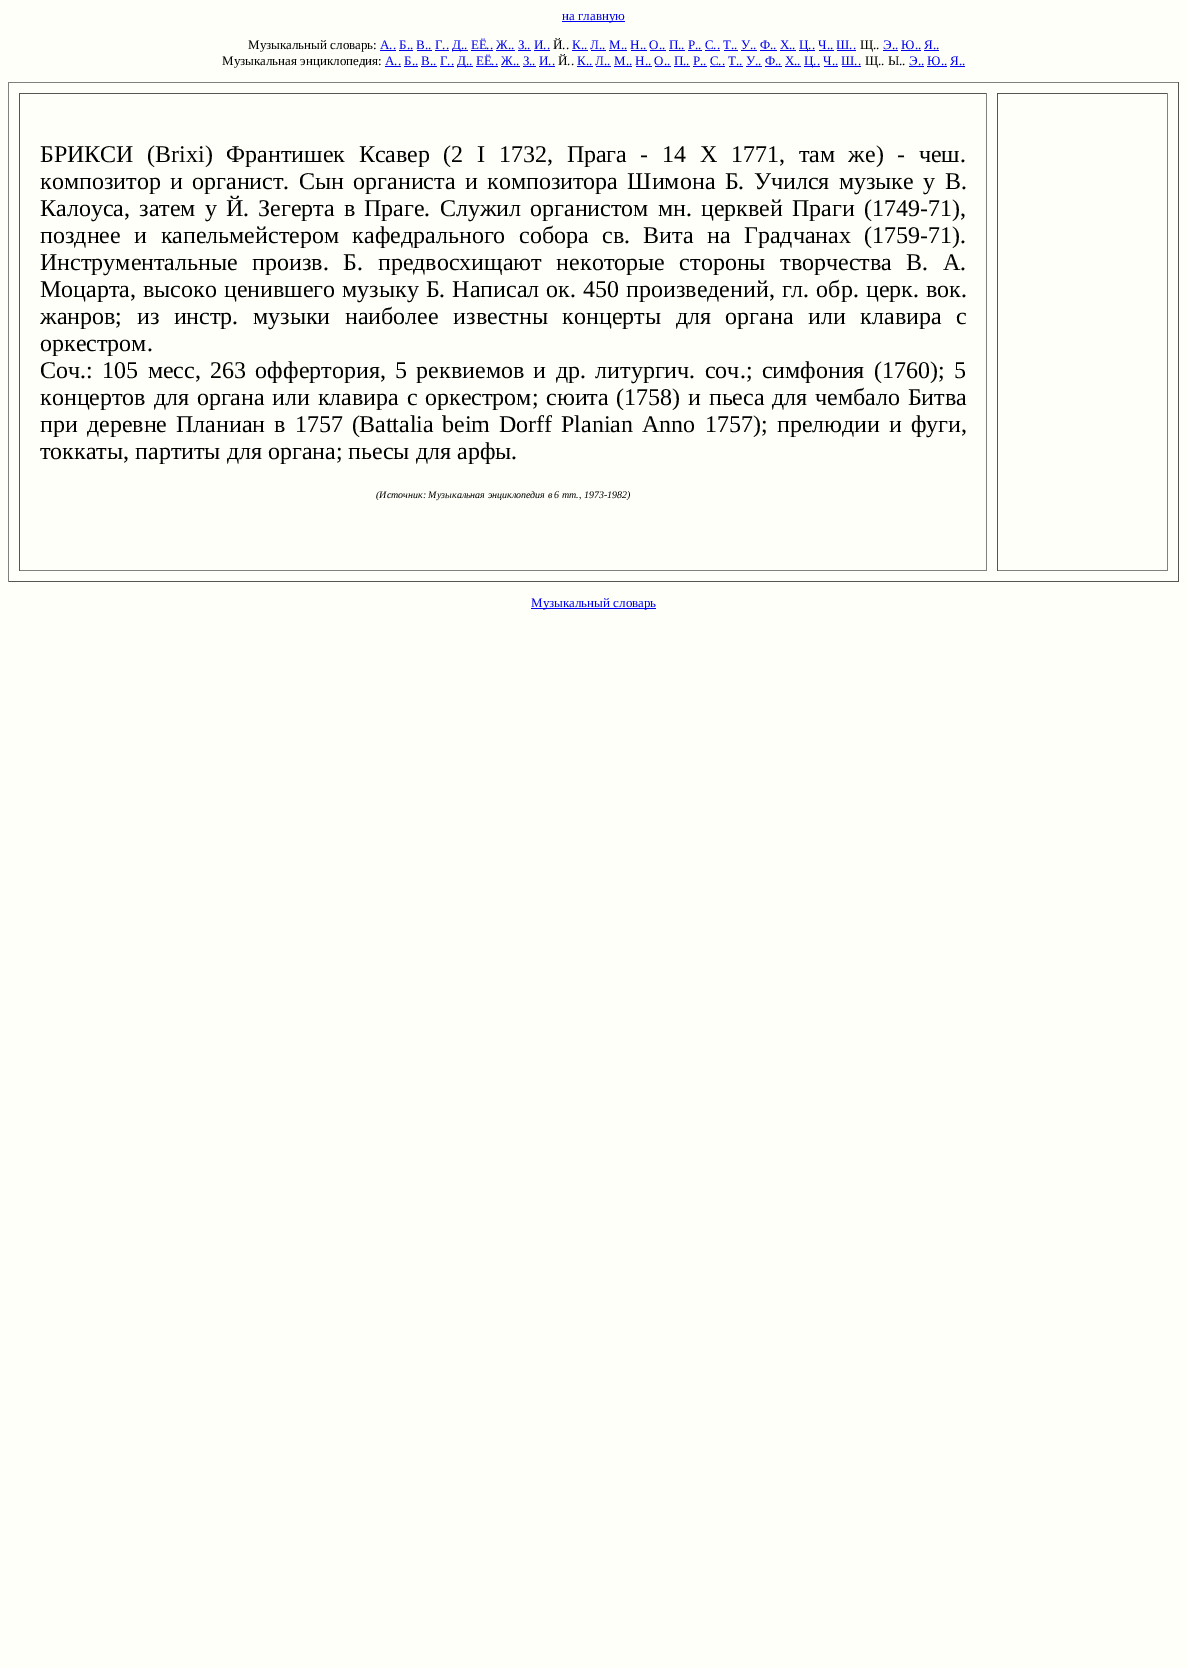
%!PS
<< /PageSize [1187 1668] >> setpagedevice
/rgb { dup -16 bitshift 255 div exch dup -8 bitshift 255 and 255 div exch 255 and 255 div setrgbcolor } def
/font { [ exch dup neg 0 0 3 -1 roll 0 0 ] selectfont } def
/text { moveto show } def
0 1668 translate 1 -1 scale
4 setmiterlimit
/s1 { /LiberationSerif-Regular 13 font 16#0000EE rgb } def
/s2 { /LiberationSerif-Regular 13 font 16#000000 rgb } def
/s3 { /LiberationSerif-Regular 24 font 16#000000 rgb } def
/s4 { /LiberationSerif-Italic 10 font 16#000000 rgb } def
16#FFFFFA rgb
0 0 1187 1668 rectfill
16#0000EE rgb
562 21 63 1 rectfill
s1
(на главную) 562 20 text
s2
(Музыкальный словарь:) 248 49 text
s1
(А.. Б.. В.. Г..) 380 49 text
380 50 16 1 rectfill
399 50 14 1 rectfill
417 50 15 1 rectfill
435 50 14 1 rectfill
452 50 16 1 rectfill
(Д.. ЕЁ.. Ж.. З.. И..) 452 49 text
471 50 22 1 rectfill
496 50 19 1 rectfill
518 50 13 1 rectfill
534 50 16 1 rectfill
s2
(Й..) 553 49 text
s1
(К.. Л.. М.. Н.. О.. П.. Р.. С.. Т.. У.. Ф.. Х..) 572 49 text
572 50 16 1 rectfill
591 50 15 1 rectfill
609 50 18 1 rectfill
631 50 16 1 rectfill
650 50 16 1 rectfill
669 50 16 1 rectfill
688 50 14 1 rectfill
705 50 15 1 rectfill
724 50 14 1 rectfill
741 50 16 1 rectfill
760 50 17 1 rectfill
780 50 16 1 rectfill
799 50 16 1 rectfill
(Ц.. Ч.. Ш..) 799 49 text
819 50 15 1 rectfill
837 50 19 1 rectfill
s2
(Щ..) 860 49 text
s1
(Э.. Ю.. Я..) 883 49 text
883 50 15 1 rectfill
901 50 20 1 rectfill
924 50 15 1 rectfill
s2
(Музыкальная энциклопедия:) 222 65 text
s1
(А.. Б.. В.. Г..) 385 65 text
385 66 16 1 rectfill
404 66 14 1 rectfill
421 66 16 1 rectfill
440 66 14 1 rectfill
457 66 16 1 rectfill
(Д.. ЕЁ.. Ж.. З.. И..) 457 65 text
476 66 22 1 rectfill
501 66 19 1 rectfill
523 66 13 1 rectfill
539 66 16 1 rectfill
s2
(Й..) 558 65 text
s1
(К.. Л.. М.. Н.. О.. П.. Р.. С.. Т.. У.. Ф.. Х..) 577 65 text
577 66 16 1 rectfill
596 66 15 1 rectfill
614 66 18 1 rectfill
636 66 16 1 rectfill
655 66 16 1 rectfill
674 66 16 1 rectfill
693 66 14 1 rectfill
710 66 15 1 rectfill
729 66 14 1 rectfill
746 66 16 1 rectfill
765 66 17 1 rectfill
785 66 16 1 rectfill
804 66 16 1 rectfill
(Ц.. Ч.. Ш..) 804 65 text
824 66 14 1 rectfill
842 66 19 1 rectfill
s2
(Щ.. Ы..) 865 65 text
s1
(Э.. Ю.. Я..) 909 65 text
909 66 15 1 rectfill
927 66 20 1 rectfill
950 66 15 1 rectfill
16#808080 rgb
8 82 1171 1 rectfill
16#555555 rgb
1178 82 1 500 rectfill
8 581 1171 1 rectfill
16#808080 rgb
8 82 1 500 rectfill
16#555555 rgb
19 93 968 1 rectfill
16#808080 rgb
986 93 1 478 rectfill
19 570 968 1 rectfill
16#555555 rgb
19 93 1 478 rectfill
/LiberationSerif-Regular 24 font
16#000000 rgb
40 162 moveto 7.5 0 32 (БРИКСИ \() widthshow
(Brixi) 155 162 text
205 162 moveto 7.5 0 32 (\) Франтишек Ксавер \(2) widthshow
(I) 477 162 text
499 162 moveto 7.5 0 32 (1732, Прага - 14) widthshow
(X) 700 162 text
731 162 moveto 7.5 0 32 (1771, там же\) - чеш.) widthshow
40 189 moveto 3.4 0 32 (композитор и органист. Сын органиста и композитора Шимона Б. Учился музыке у В.) widthshow
40 216 moveto 3.1 0 32 (Калоуса, затем у Й. Зегерта в Праге. Служил органистом мн. церквей Праги \(1749-71\),) widthshow
40 243 moveto 7.5 0 32 (позднее и капельмейстером кафедрального собора св. Вита на Градчанах \(1759-71\).) widthshow
40 270 moveto 8.6 0 32 (Инструментальные произв. Б. предвосхищают некоторые стороны творчества В. А.) widthshow
40 297 moveto 1 0 32 (Моцарта, высоко ценившего музыку Б. Написал ок. 450 произведений, гл. обр. церк. вок.) widthshow
40 324 moveto 8.6 0 32 (жанров; из инстр. музыки наиболее известны концерты для органа или клавира с) widthshow
(оркестром.) 40 351 text
40 378 moveto 3.4 0 32 (Соч.: 105 месс, 263 оффертория, 5 реквиемов и др. литургич. соч.; симфония \(1760\); 5) widthshow
40 405 moveto 1.75 0 32 (концертов для органа или клавира с оркестром; сюита \(1758\) и пьеса для чембало Битва) widthshow
40 432 moveto 3 0 32 (при деревне Планиан в 1757 \() widthshow
(Battalia) 359 432 text
(beim) 442 432 text
(Dorff) 499 432 text
(Planian) 561 432 text
(Anno) 642 432 text
705 432 moveto 3 0 32 (1757\); прелюдии и фуги,) widthshow
(токкаты, партиты для органа; пьесы для арфы.) 40 459 text
s4
(\(Источник: Музыкальная энциклопедия в 6 тт., 1973-1982\)) 376 498 text
16#555555 rgb
997 93 171 1 rectfill
16#808080 rgb
1167 93 1 478 rectfill
997 570 171 1 rectfill
16#555555 rgb
997 93 1 478 rectfill
16#0000EE rgb
531 608 125 1 rectfill
s1
(Музыкальный словарь) 531 607 text
showpage
